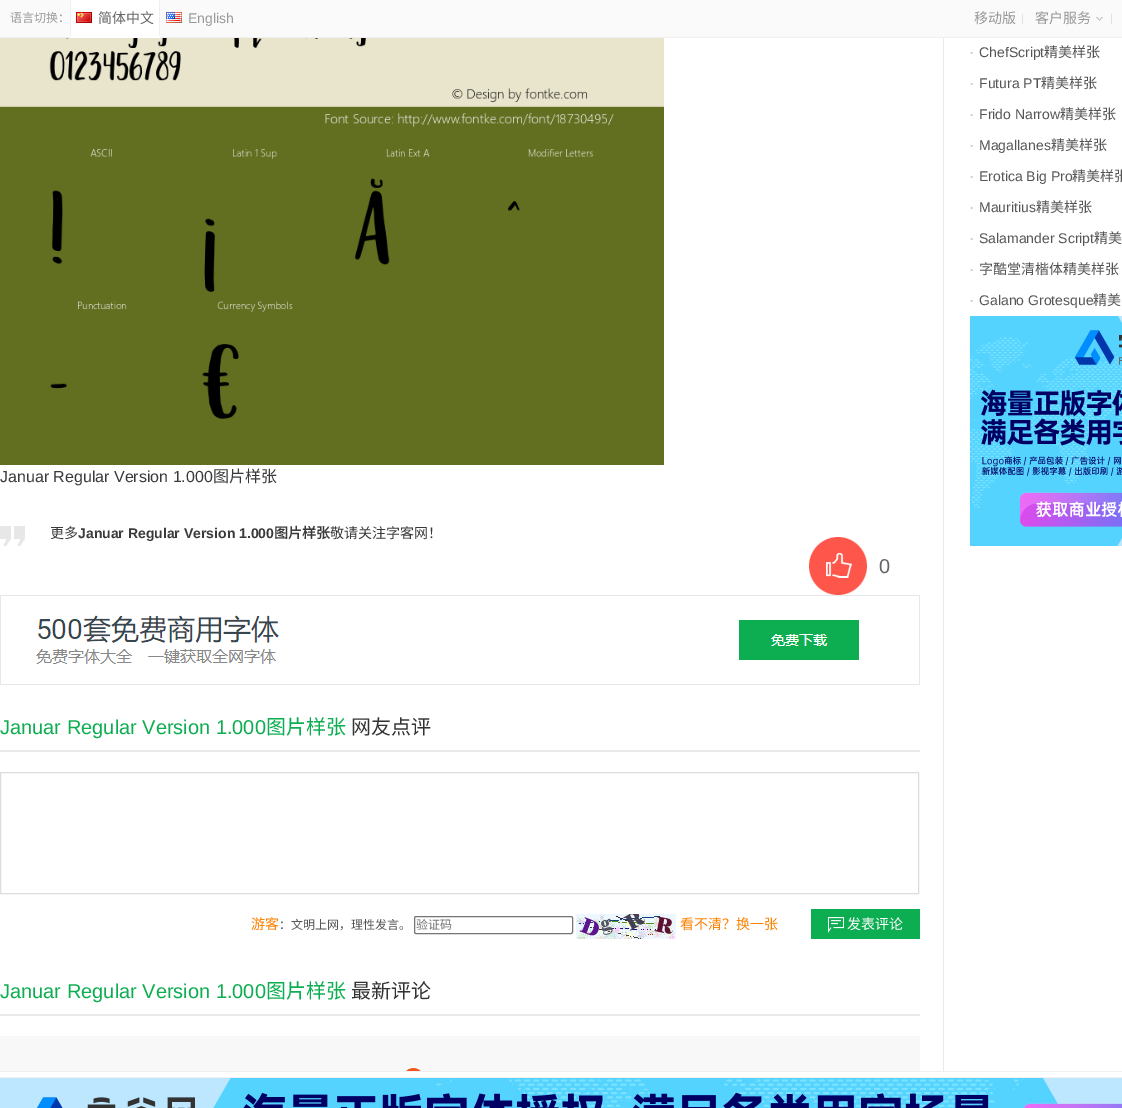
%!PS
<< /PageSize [1122 1108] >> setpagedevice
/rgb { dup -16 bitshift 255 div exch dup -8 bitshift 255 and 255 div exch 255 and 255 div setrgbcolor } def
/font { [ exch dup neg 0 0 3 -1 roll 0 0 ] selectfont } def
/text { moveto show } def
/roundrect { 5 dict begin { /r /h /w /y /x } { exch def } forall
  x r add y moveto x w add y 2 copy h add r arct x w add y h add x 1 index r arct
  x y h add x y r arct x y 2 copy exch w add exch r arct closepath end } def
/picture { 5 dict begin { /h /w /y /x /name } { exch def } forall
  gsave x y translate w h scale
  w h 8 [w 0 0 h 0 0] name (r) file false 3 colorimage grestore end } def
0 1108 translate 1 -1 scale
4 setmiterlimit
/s1 { /NotoSansCJKSC-Regular 12 font 16#999999 rgb } def
/s2 { /NotoSansCJKSC-Regular 14 font 16#666666 rgb } def
/s3 { /LiberationSans-Regular 14 font 16#999999 rgb } def
/s4 { /NotoSansCJKSC-Regular 14 font 16#999999 rgb } def
/s5 { /LiberationSans-Bold 12 font 16#CCCCCC rgb } def
/s6 { /LiberationSans-Regular 14 font 16#555555 rgb } def
/s7 { /NotoSansCJKSC-Regular 14 font 16#555555 rgb } def
/s8 { /LiberationSans-Regular 16 font 16#3A3A3A rgb } def
/s9 { /NotoSansCJKSC-Regular 16 font 16#3A3A3A rgb } def
/s10 { /NotoSansCJKSC-Regular 14 font 16#3A3A3A rgb } def
/s11 { /LiberationSans-Bold 14 font 16#3A3A3A rgb } def
/s12 { /NotoSansCJKSC-Bold 14 font 16#3A3A3A rgb } def
/s13 { /LiberationSans-Regular 20 font 16#666666 rgb } def
/s14 { /LiberationSans-Regular 20 font 16#0DAD51 rgb } def
/s15 { /NotoSansCJKSC-Regular 20 font 16#0DAD51 rgb } def
/s16 { /NotoSansCJKSC-Regular 20 font 16#333333 rgb } def
/s17 { /NotoSansCJKSC-Regular 14 font 16#FF8100 rgb } def
/s18 { /NotoSansCJKSC-Regular 12 font 16#555555 rgb } def
/s19 { /NotoSansCJKSC-Regular 12 font 16#757575 rgb } def
/s20 { /NotoSansCJKSC-Regular 14 font 16#FFFFFF rgb } def
16#FFFFFF rgb
0 0 1122 1108 rectfill
16#FAFAFB rgb
0 0 1122 37 rectfill
16#EFEFEF rgb
0 37 1122 1 rectfill
s1
(语言切换：) 10 22 text
16#FFFFFF rgb
70 0 90 38 rectfill
16#EFEFEF rgb
159 0 1 36 rectfill
70 0 1 36 rectfill
(pic1.raw) 76 12 16 11 picture
s2
(简体中文) 98 23 text
(pic2.raw) 166 12 16 11 picture
s3
(English) 188 23 text
s4
(移动版) 974 23 text
16#E1E1E1 rgb
1022 14 1 10 rectfill
s4
(客户服务) 1035 23 text
(pic3.raw) 1096 17 7 4 picture
16#E1E1E1 rgb
1111 14 1 10 rectfill
s5
(·) 970 57 text
s6
(ChefScript) 979 57 text
s7
(精美样张) 1044 57 text
s5
(·) 970 88 text
s6
(Futura PT) 979 88 text
s7
(精美样张) 1041 88 text
s5
(·) 970 119 text
s6
(Frido Narrow) 979 119 text
s7
(精美样张) 1060 119 text
s5
(·) 970 150 text
s6
(Magallanes) 979 150 text
s7
(精美样张) 1051 150 text
s5
(·) 970 181 text
s6
(Erotica Big Pro) 979 181 text
s7
(精美样张) 1072 181 text
s5
(·) 970 212 text
s6
(Mauritius) 979 212 text
s7
(精美样张) 1036 212 text
s5
(·) 970 243 text
s6
(Salamander Script) 979 243 text
s7
(精美) 1094 243 text
s5
(·) 970 274 text
s7
(字酷堂清楷体精美样张) 979 274 text
s5
(·) 970 305 text
s6
(Galano Grotesque) 979 305 text
s7
(精美) 1093 305 text
(pic4.raw) 970 316 152 230 picture
16#EAEAEA rgb
943 38 1 1033 rectfill
(pic5.raw) 0 38 664 427 picture
s8
(Januar Regular Version 1.000) 0 482 text
s9
(图片样张) 213 482 text
(pic6.raw) 0 526 25 20 picture
s10
(更多) 50 538 text
s11
(Januar Regular Version 1.000) 78 538 text
s12
(图片样张) 274 538 text
s10
(敬请关注字客网！) 330 538 text
(pic7.raw) 809 537 58 58 picture
s13
(0) 879 573 text
(pic8.raw) 0 595 920 90 picture
16#E9E9E9 rgb
0 750 920 2 rectfill
s14
(Januar Regular Version 1.000) 0 734 text
s15
(图片样张) 266 734 text
s16
(网友点评) 351 734 text
16#DDDDDD rgb
0.5 772.5 918 121 rectstroke
s17
(游客) 251 929 text
s18
(：文明上网，理性发言。) 279 929 text
16#767676 rgb
414.5 916.5 158 17 1.5 roundrect stroke
s19
(验证码) 416 929 text
(pic9.raw) 576 914 100 25 picture
s17
(看不清？换一张) 680 929 text
16#0DAD51 rgb
811 909 109 30 rectfill
(pic10.raw) 828 917 16 16 picture
s20
(发表评论) 847 929 text
16#E9E9E9 rgb
0 1014 920 2 rectfill
s14
(Januar Regular Version 1.000) 0 998 text
s15
(图片样张) 266 998 text
s16
(最新评论) 351 998 text
16#F8F8F8 rgb
0 1036 920 35 rectfill
(pic11.raw) 406 1068 15 3 picture
16#F0F0F0 rgb
0 1071 1122 1 rectfill
0 1077 1122 1 rectfill
(pic12.raw) 0 1078 1122 30 picture
showpage
